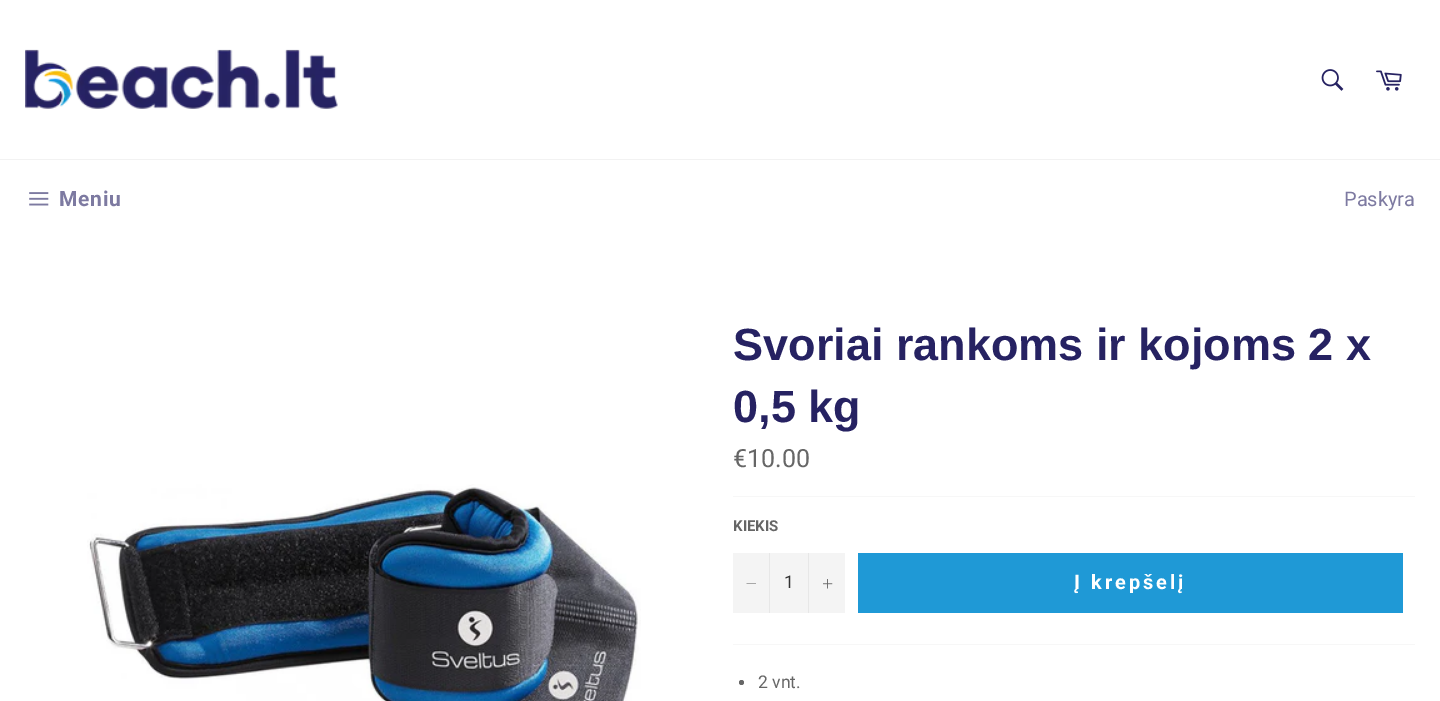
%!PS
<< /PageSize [1440 701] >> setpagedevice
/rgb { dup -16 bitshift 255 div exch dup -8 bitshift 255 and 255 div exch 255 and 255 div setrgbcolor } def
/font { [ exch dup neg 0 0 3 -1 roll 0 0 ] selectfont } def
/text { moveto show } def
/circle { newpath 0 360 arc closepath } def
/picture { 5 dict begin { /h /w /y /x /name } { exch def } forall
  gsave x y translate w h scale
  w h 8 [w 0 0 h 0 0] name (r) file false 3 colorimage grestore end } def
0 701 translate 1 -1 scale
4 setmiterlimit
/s1 { /Roboto-Regular 20 font 16#7D7AA1 rgb } def
/s2 { /LiberationSans-Bold 45 font 16#262262 rgb } def
/s3 { /Roboto-Regular 25 font 16#666666 rgb } def
/s4 { /Roboto-Bold 15 font 16#666666 rgb } def
/s5 { /Roboto-Regular 17.5 font 16#333333 rgb } def
/s6 { /Roboto-Regular 17.5 font 16#666666 rgb } def
16#FFFFFF rgb
0 0 1440 701 rectfill
(pic1.raw) 25 49 313 60 picture
(pic2.raw) 1321 69 23 22 picture
(pic3.raw) 1376 70 26 21 picture
16#F2F2F2 rgb
0 159 1440 1 rectfill
(pic4.raw) 29 192 20 14 picture
/Roboto-Bold 21 font
16#7D7AA1 rgb
59 206 moveto 0.75 0 (Meniu) ashow
s1
(Paskyra) 1344 206 text
(pic5.raw) 87 484 554 217 picture
s2
(Svoriai rankoms ir kojoms 2 x) 733 360 text
(0,5 kg) 733 422 text
s3
(€10.00) 733 467 text
16#F7F7F7 rgb
733 496 682 1 rectfill
s4
(KIEKIS) 733 531 text
16#F4F4F4 rgb
733 553 112 60 rectfill
16#E7E7E7 rgb
769 553 1 60 rectfill
16#666666 rgb
756 583.5 moveto 756 584 lineto 746.5 584 lineto 746.5 583.5 lineto closepath eofill
s5
(1) 784 588 text
16#E7E7E7 rgb
808 553 1 60 rectfill
(pic6.raw) 823 579 10 10 picture
16#1F99D6 rgb
858 553 545 60 rectfill
/Roboto-Bold 20 font
16#FFFFFF rgb
1074 589 moveto 3 0 (Į krepšelį) ashow
16#F7F7F7 rgb
733 644 682 1 rectfill
16#666666 rgb
741.5 682.5 2.5 circle fill
s6
(2 vnt.) 758 688 text
showpage
